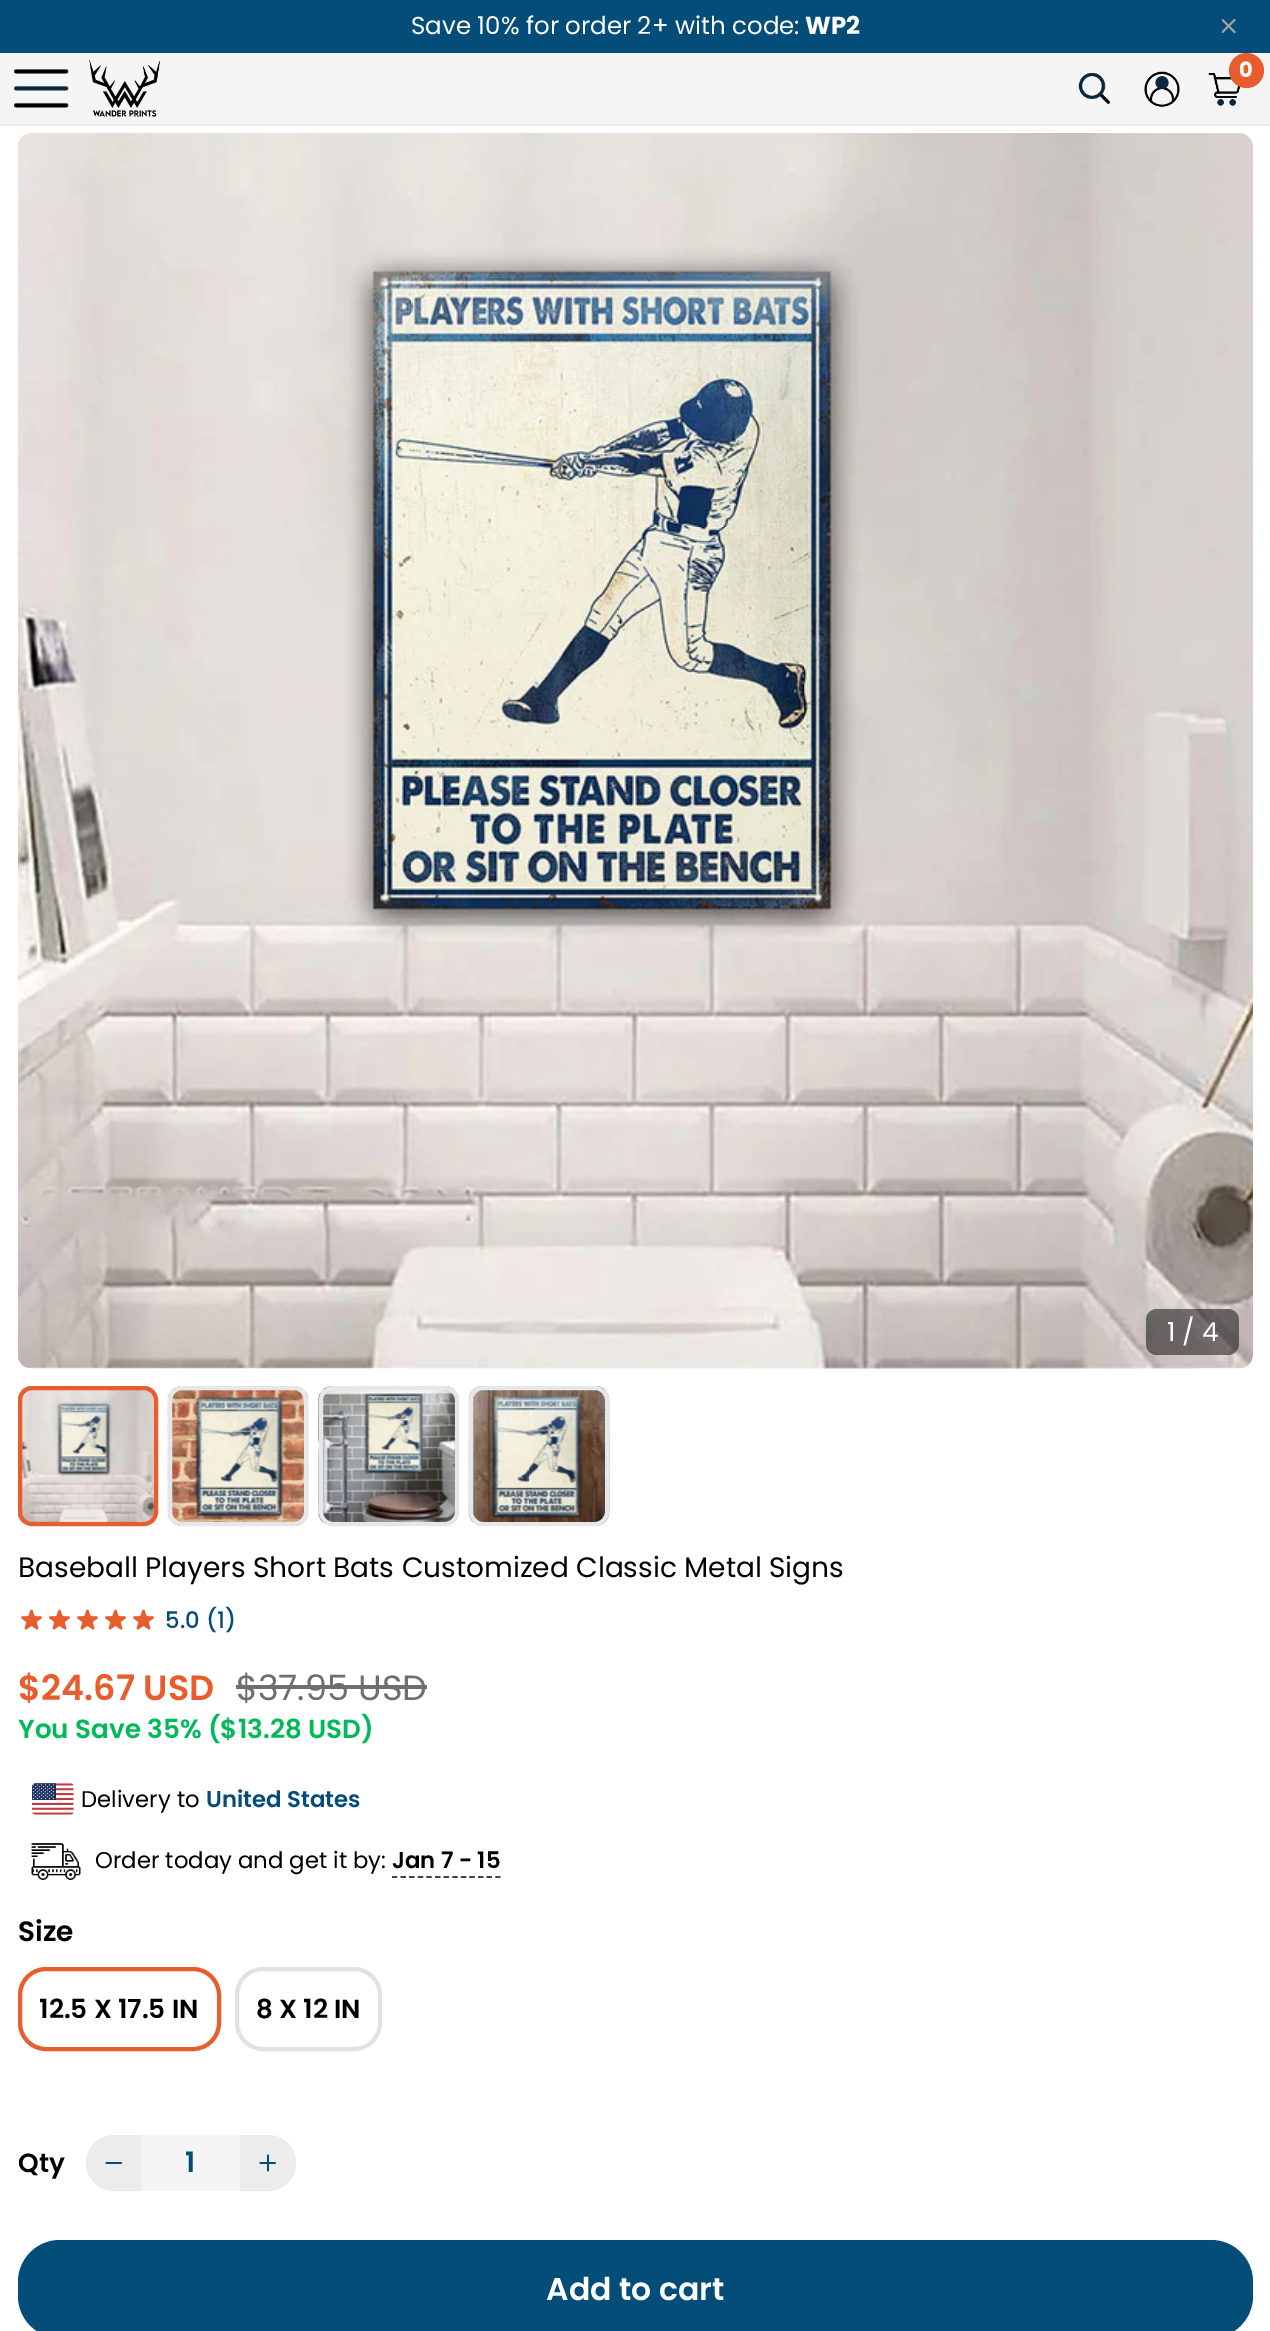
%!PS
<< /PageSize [1270 2331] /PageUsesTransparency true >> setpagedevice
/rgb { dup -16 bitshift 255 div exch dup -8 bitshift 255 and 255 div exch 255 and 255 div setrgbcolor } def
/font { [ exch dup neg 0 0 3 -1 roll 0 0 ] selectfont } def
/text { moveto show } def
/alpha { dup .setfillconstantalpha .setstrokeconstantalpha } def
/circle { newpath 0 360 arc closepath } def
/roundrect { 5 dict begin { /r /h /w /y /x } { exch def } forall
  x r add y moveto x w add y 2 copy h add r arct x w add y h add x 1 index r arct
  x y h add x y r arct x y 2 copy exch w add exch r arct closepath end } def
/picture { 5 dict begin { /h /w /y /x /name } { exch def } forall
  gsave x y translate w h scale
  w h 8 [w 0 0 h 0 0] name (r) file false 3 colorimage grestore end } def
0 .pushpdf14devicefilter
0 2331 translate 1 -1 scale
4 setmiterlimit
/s1 { /Poppins-Regular 24.5 font 16#FFFFFF rgb } def
/s2 { /Poppins-Bold 24.5 font 16#FFFFFF rgb } def
/s3 { /Poppins-Bold 21 font 16#FFFFFF rgb } def
/s4 { /Poppins-Regular 26.25 font 16#FFFFFF rgb } def
/s5 { /Poppins-Regular 28 font 16#000000 rgb } def
/s6 { /Poppins-Medium 22.75 font 16#044D79 rgb } def
/s7 { /Poppins-SemiBold 35 font 16#E95D2C rgb } def
/s8 { /Poppins-Regular 35 font 16#6E6E6E rgb } def
/s9 { /Poppins-SemiBold 26.25 font 16#00B958 rgb } def
/s10 { /Poppins-Regular 22.75 font 16#000000 rgb } def
/s11 { /Poppins-SemiBold 22.75 font 16#044D79 rgb } def
/s12 { /Poppins-SemiBold 22.75 font 16#000000 rgb } def
/s13 { /Poppins-SemiBold 28 font 16#000000 rgb } def
/s14 { /Poppins-SemiBold 26.25 font 16#000000 rgb } def
/s15 { /Poppins-SemiBold 28 font 16#044D79 rgb } def
/s16 { /Poppins-SemiBold 31.5 font 16#FFFFFF rgb } def
16#FFFFFF rgb
0 0 1270 2331 rectfill
16#044D79 rgb
0 0 1270 53 rectfill
s1
(Save 10% for order 2+ with code:) 411 34 text
s2
(WP2) 805 34 text
gsave
1222 19 14 14 rectclip
16#A1A1A1 rgb
2 setlinewidth
1 setlinecap
1 setlinejoin
1222.5 20 moveto 1228.5 26 lineto 1228.5 26 moveto 1234.5 32 lineto 1228.5 26 moveto 1234.5 20 lineto 1228.5 26 moveto 1222.5 32 lineto stroke
grestore
16#F5F5F5 rgb
0 53 1270 71 rectfill
16#ECECEC rgb
0 124 1270 2 rectfill
(pic1.raw) 14 69 55 39 picture
(pic2.raw) 89 60 72 57 picture
(pic3.raw) 1208 73 33 33 picture
16#E95D2C rgb
1246.5 70.5 17.5 circle fill
s3
(0) 1239 77 text
(pic4.raw) 1078 73 32 32 picture
(pic5.raw) 1144 71 36 36 picture
(pic6.raw) 18 133 1235 1236 picture
0.5 alpha
16#000000 rgb
1146 1309 93 46 11 roundrect fill
1 alpha
s4
(1 / 4) 1167 1341 text
(pic7.raw) 18 1386 140 140 picture
16#E95D2C rgb
4 setlinewidth
20 1388 136 136 12 roundrect stroke
(pic8.raw) 167 1386 142 140 picture
16#E5E7EB rgb
170 1388 136 136 12 roundrect stroke
(pic9.raw) 318 1386 141 140 picture
321 1388 136 136 12 roundrect stroke
(pic10.raw) 468 1386 142 140 picture
471 1388 136 136 12 roundrect stroke
s5
(Baseball Players Short Bats Customized Classic Metal Signs) 18 1577 text
(pic11.raw) 21 1609 21 21 picture
(pic11.raw) 49 1609 21 21 picture
(pic11.raw) 77 1609 21 21 picture
(pic11.raw) 105 1609 21 21 picture
(pic11.raw) 133 1609 21 21 picture
s6
(5.0 \(1\)) 165 1628 text
s7
($24.67 USD) 18 1700 text
s8
($37.95 USD) 236 1700 text
236 1685 191 4 rectfill
s9
(You Save 35% \($13.28 USD\)) 18 1738 text
(pic12.raw) 32 1783 42 32 picture
s10
(Delivery to) 81 1807 text
s11
(United States) 206 1807 text
(pic13.raw) 31 1843 50 37 picture
s10
(Order today and get it by:) 95 1868 text
s12
(Jan 7 - 15) 392 1868 text
16#444444 rgb
1.8 setlinewidth
[5.25 3.36] 0 setdash
392 1877 moveto 500.5 1877 lineto stroke
s13
(Size) 18 1941 text
16#E95D2C rgb
4 setlinewidth
[] 0 setdash
20 1969 199 80 26 roundrect stroke
s14
(12.5 X 17.5 IN) 39 2018 text
16#E2E2E2 rgb
237 1969 143 80 26 roundrect stroke
s14
(8 X 12 IN) 256 2018 text
(Qty) 18 2172 text
16#F5F5F5 rgb
86 2135 210 56 28 roundrect fill
16#ECECEC rgb
114 2135 moveto 142 2135 lineto 142 2191 lineto 114 2191 lineto 98.5 2191 86 2178.5 86 2163 curveto 86 2147.5 98.5 2135 114 2135 curveto closepath fill
16#044D79 rgb
1.8 setlinewidth
1 setlinecap
106.5 2163 moveto 121 2163 lineto stroke
s15
(1) 185 2172 text
16#ECECEC rgb
240 2135 moveto 268 2135 lineto 283.5 2135 296 2147.5 296 2163 curveto 296 2178.5 283.5 2191 268 2191 curveto 240 2191 lineto closepath fill
16#044D79 rgb
260.5 2163 moveto 275 2163 lineto 268 2155.5 moveto 268 2170.5 lineto stroke
18 2240 1235 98 42 roundrect fill
s16
(Add to cart) 546 2300 text
.poppdf14devicefilter showpage
